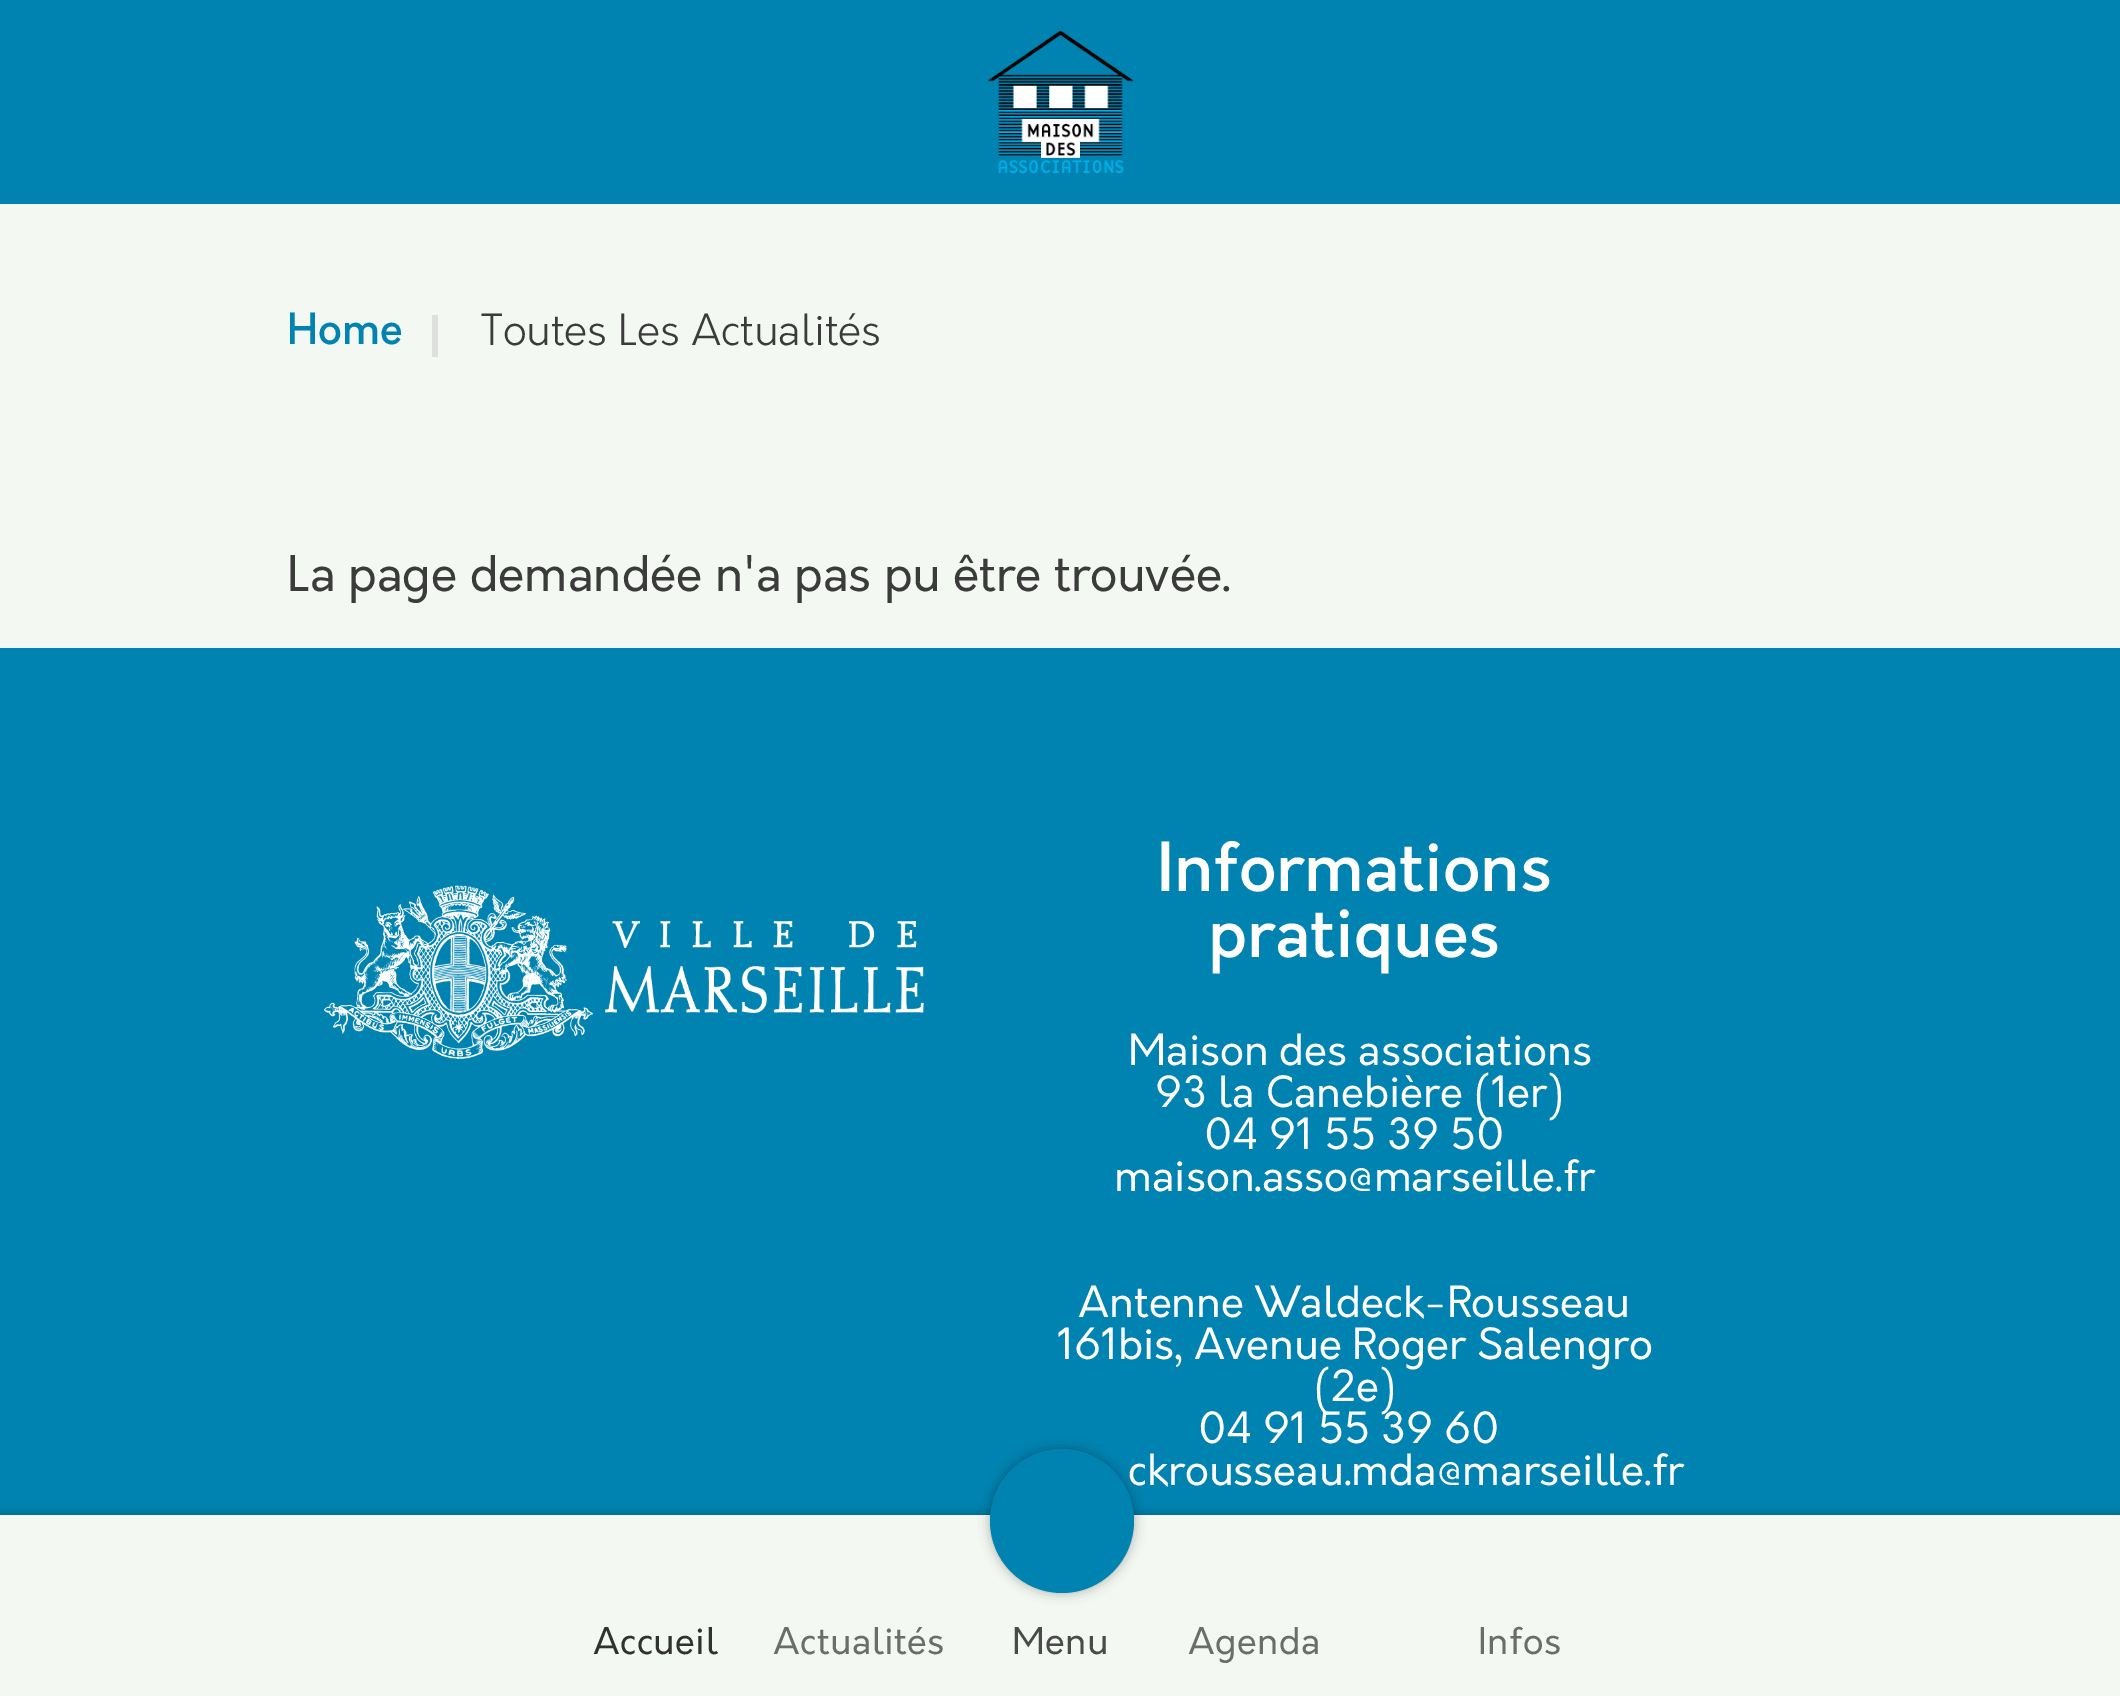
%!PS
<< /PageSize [2120 1696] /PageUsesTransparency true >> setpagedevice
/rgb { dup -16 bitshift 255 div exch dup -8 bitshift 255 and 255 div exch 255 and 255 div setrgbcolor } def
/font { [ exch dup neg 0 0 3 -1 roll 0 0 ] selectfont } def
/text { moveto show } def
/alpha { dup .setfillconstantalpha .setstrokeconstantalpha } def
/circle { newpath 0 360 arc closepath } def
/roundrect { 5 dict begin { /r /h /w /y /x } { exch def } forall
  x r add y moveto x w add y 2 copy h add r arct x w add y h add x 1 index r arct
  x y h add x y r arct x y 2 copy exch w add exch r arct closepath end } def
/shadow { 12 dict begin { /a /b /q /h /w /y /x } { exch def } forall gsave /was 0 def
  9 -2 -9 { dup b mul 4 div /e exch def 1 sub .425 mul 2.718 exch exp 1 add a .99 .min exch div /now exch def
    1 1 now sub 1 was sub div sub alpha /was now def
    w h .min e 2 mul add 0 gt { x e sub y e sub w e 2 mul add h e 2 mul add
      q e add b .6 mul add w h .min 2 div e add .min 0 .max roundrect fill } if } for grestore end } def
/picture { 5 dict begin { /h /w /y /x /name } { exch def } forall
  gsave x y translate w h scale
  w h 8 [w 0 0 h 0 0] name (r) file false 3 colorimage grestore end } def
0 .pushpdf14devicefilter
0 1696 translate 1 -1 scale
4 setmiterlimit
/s1 { /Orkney-Medium 42 font 16#0083B0 rgb } def
/s2 { /Orkney-Light 42 font 16#3B3B3B rgb } def
/s3 { /Orkney-Regular 48 font 16#3B3B3B rgb } def
/s4 { /Orkney-Medium 66 font 16#FFFFFF rgb } def
/s5 { /Orkney-Regular 42 font 16#FFFFFF rgb } def
16#F3F8F2 rgb
0 0 2120 1696 rectfill
16#0083B0 rgb
0 0 2120 204 rectfill
(pic1.raw) 988 30 146 144 picture
16#DFDFDF rgb
432 315 6 42 rectfill
s1
(Home) 287 344 text
s2
(Toutes Les Actualités) 481 345 text
s3
(La page demandée n'a pas pu être trouvée.) 287 591 text
16#0083B0 rgb
0 648 2120 867 rectfill
(pic2.raw) 324 885 600 174 picture
s4
(Informations) 1157 891 text
(pratiques) 1208 957 text
s5
(Maison des associations) 1128 1065 text
(93 la Canebière \(1er\)) 1155 1107 text
(04 91 55 39 50) 1204 1149 text
(maison.asso@marseille.fr) 1114 1191 text
(Antenne Waldeck-Rousseau) 1078 1317 text
(161bis, Avenue Roger Salengro) 1057 1359 text
(\(2e\)) 1314 1401 text
(04 91 55 39 60) 1198 1443 text
(ckrousseau.mda@marseille.fr) 1128 1485 text
16#000000 rgb
0 1515 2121 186 0 6 0.3 shadow
16#F3F8F2 rgb
0 1515 2120 181 rectfill
/Orkney-Regular 36 font
16#313230 rgb
593 1654 moveto 0.5 0 (Accueil) ashow
16#6B6D6B rgb
773 1654 moveto 0.5 0 (Actualités) ashow
16#000000 rgb
990 1449 144 144 72 6 0.3 shadow
16#0083B0 rgb
1062 1521 72 circle fill
16#494A49 rgb
1012 1654 moveto 0.5 0 (Menu) ashow
16#6B6D6B rgb
1188 1654 moveto 0.5 0 (Agenda) ashow
1478 1654 moveto 0.5 0 (Infos) ashow
.poppdf14devicefilter showpage
